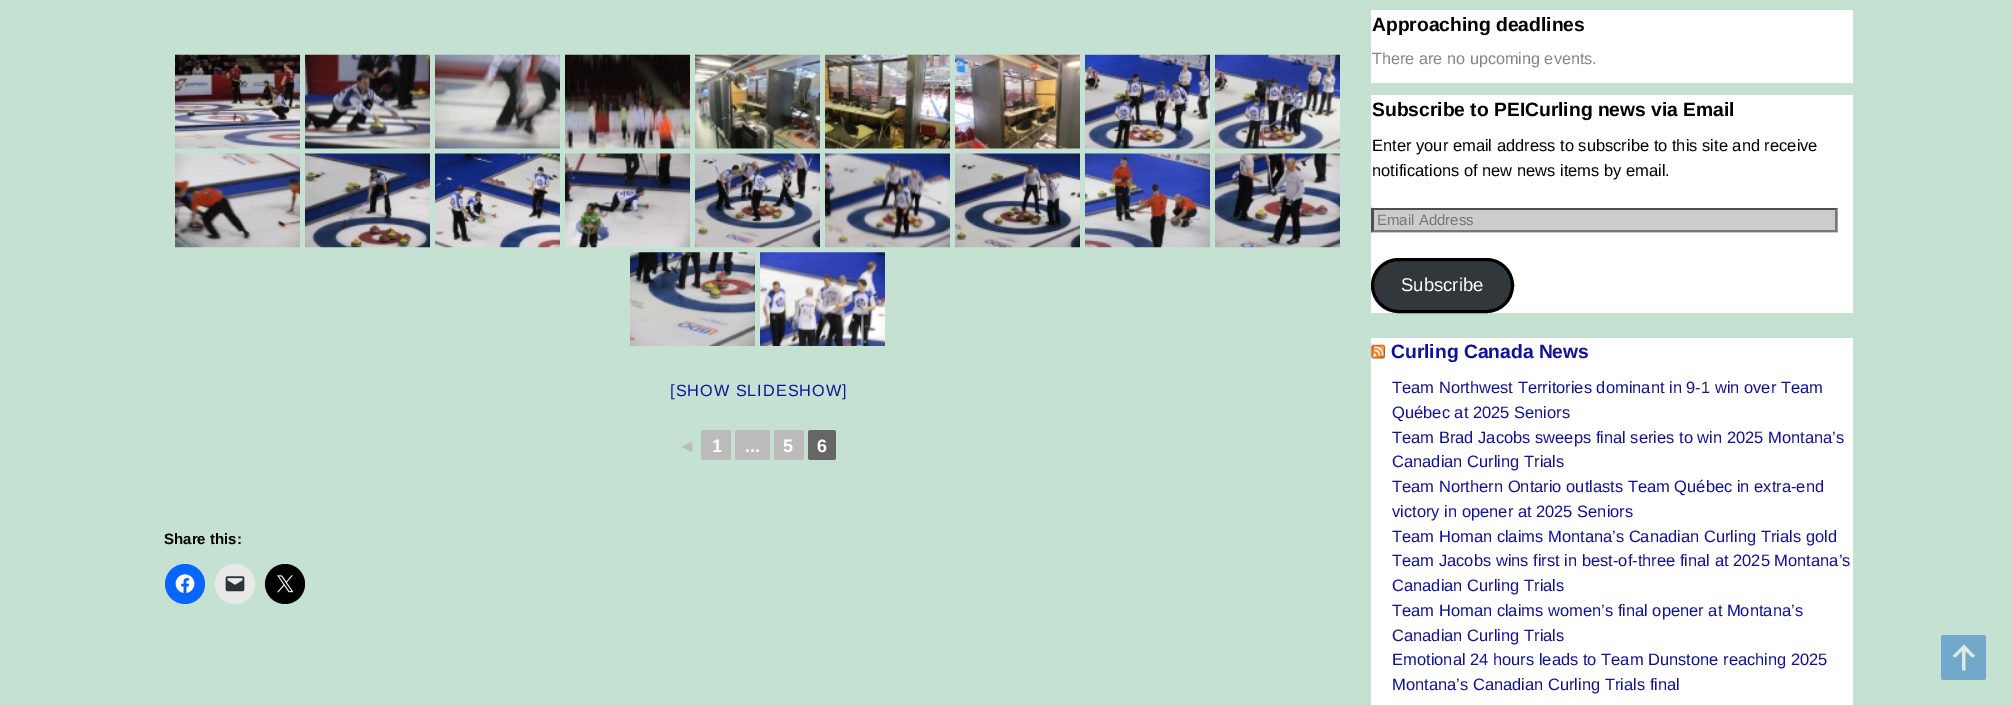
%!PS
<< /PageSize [2011 705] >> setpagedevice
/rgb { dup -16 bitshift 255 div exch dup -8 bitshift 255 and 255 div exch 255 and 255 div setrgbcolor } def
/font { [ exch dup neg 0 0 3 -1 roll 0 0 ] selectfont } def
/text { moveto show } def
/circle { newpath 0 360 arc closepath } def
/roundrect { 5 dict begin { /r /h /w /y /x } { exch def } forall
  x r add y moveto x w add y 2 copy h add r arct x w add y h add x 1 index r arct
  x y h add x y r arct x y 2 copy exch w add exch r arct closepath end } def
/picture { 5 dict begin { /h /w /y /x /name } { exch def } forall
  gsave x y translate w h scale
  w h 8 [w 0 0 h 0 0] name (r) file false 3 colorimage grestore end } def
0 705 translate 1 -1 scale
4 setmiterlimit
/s1 { /LiberationSans-Bold 18 font 16#BBBBBB rgb } def
/s2 { /LiberationSans-Bold 18 font 16#FFFFFF rgb } def
/s3 { /LiberationSans-Bold 15 font 16#000000 rgb } def
/s4 { /LiberationSans-Bold 19.25 font 16#000000 rgb } def
/s5 { /LiberationSans-Regular 16.25 font 16#858585 rgb } def
/s6 { /LiberationSans-Regular 16.5 font 16#000000 rgb } def
/s7 { /LiberationSans-Regular 15 font 16#757575 rgb } def
/s8 { /LiberationSans-Regular 18.5 font 16#FFFFFF rgb } def
/s9 { /LiberationSans-Bold 19.25 font 16#111199 rgb } def
/s10 { /LiberationSans-Regular 16.5 font 16#111199 rgb } def
16#C5E1D2 rgb
0 0 2011 705 rectfill
(pic1.raw) 175 54 125 95 picture
(pic2.raw) 305 54 125 95 picture
(pic3.raw) 435 54 125 95 picture
(pic4.raw) 565 54 125 95 picture
(pic5.raw) 695 54 125 95 picture
(pic6.raw) 825 54 125 95 picture
(pic7.raw) 955 54 125 95 picture
(pic8.raw) 1085 54 125 95 picture
(pic9.raw) 1215 54 125 95 picture
(pic10.raw) 175 153 125 95 picture
(pic11.raw) 305 153 125 95 picture
(pic12.raw) 435 153 125 95 picture
(pic13.raw) 565 153 125 95 picture
(pic14.raw) 695 153 125 95 picture
(pic15.raw) 825 153 125 95 picture
(pic16.raw) 955 153 125 95 picture
(pic17.raw) 1085 153 125 95 picture
(pic18.raw) 1215 153 125 95 picture
(pic19.raw) 630 252 125 94 picture
(pic20.raw) 760 252 125 94 picture
/LiberationSans-Regular 16.25 font
16#111199 rgb
670 396 moveto 1 0 ([SHOW SLIDESHOW]) ashow
s1
(◄) 678 452 text
701 430 30 30 2.5 roundrect fill
s2
(1) 712 452 text
16#BBBBBB rgb
735 430 35 30 2.5 roundrect fill
s2
(...) 745 452 text
16#BBBBBB rgb
774 430 30 30 2.5 roundrect fill
s2
(5) 783 452 text
16#666666 rgb
808 430 28 30 2.5 roundrect fill
s2
(6) 817 452 text
s3
(Share this:) 164 544 text
16#0866FF rgb
185 584 20 circle fill
(pic21.raw) 175 574 20 19 picture
16#E9E9E9 rgb
235 584 20 circle fill
(pic22.raw) 225 576 20 16 picture
16#000000 rgb
285 584 20 circle fill
(pic23.raw) 277 575 17 18 picture
16#FFFFFF rgb
1371 10 482 73 rectfill
s4
(Approaching deadlines) 1372 31 text
s5
(There are no upcoming events.) 1372 64 text
16#FFFFFF rgb
1371 95 482 218 rectfill
s4
(Subscribe to PEICurling news via Email) 1372 116 text
s6
(Enter your email address to subscribe to this site and receive) 1372 151 text
(notifications of new news items by email.) 1372 176 text
16#CCCCCC rgb
1371 208 467 25 rectfill
16#4F4F4F rgb
1371 208 moveto 1838 208 lineto 1835 210 lineto 1374 210 lineto closepath fill
16#767676 rgb
1837.5 207.5 moveto 1837.5 232.5 lineto 1835 230 lineto 1835 210 lineto closepath fill
1838 232 moveto 1371 232 lineto 1374 230 lineto 1835 230 lineto closepath fill
16#4F4F4F rgb
1371 232.5 moveto 1371 207.5 lineto 1374 210 lineto 1374 230 lineto closepath fill
s7
(Email Address) 1377 225 text
16#32373C rgb
1372.5 259.5 140 52 26 roundrect gsave fill grestore
16#000000 rgb
3 setlinewidth
stroke
s8
(Subscribe) 1401 291 text
1371 338 482 367 rectfill
(pic24.raw) 1371 344 14 15 picture
s9
(Curling Canada News) 1391 358 text
s10
(Team Northwest Territories dominant in 9-1 win over Team) 1392 393 text
(Québec at 2025 Seniors) 1392 418 text
(Team Brad Jacobs sweeps final series to win 2025 Montana’s) 1392 443 text
(Canadian Curling Trials) 1392 467 text
(Team Northern Ontario outlasts Team Québec in extra-end) 1392 492 text
(victory in opener at 2025 Seniors) 1392 517 text
(Team Homan claims Montana’s Canadian Curling Trials gold) 1392 542 text
(Team Jacobs wins first in best-of-three final at 2025 Montana’s) 1392 566 text
(Canadian Curling Trials) 1392 591 text
(Team Homan claims women’s final opener at Montana’s) 1392 616 text
(Canadian Curling Trials) 1392 641 text
(Emotional 24 hours leads to Team Dunstone reaching 2025) 1392 665 text
(Montana’s Canadian Curling Trials final) 1392 690 text
16#72A8C9 rgb
1941 635 45 45 2.5 roundrect fill
16#DCEAE2 rgb
1965.5 670.5 moveto 1962 670.5 lineto 1962 651 lineto 1955.5 657.5 lineto 1952.5 656 lineto 1964 644.5 lineto 1975 656 lineto 1972 657.5 lineto 1965.5 651 lineto closepath fill
showpage
